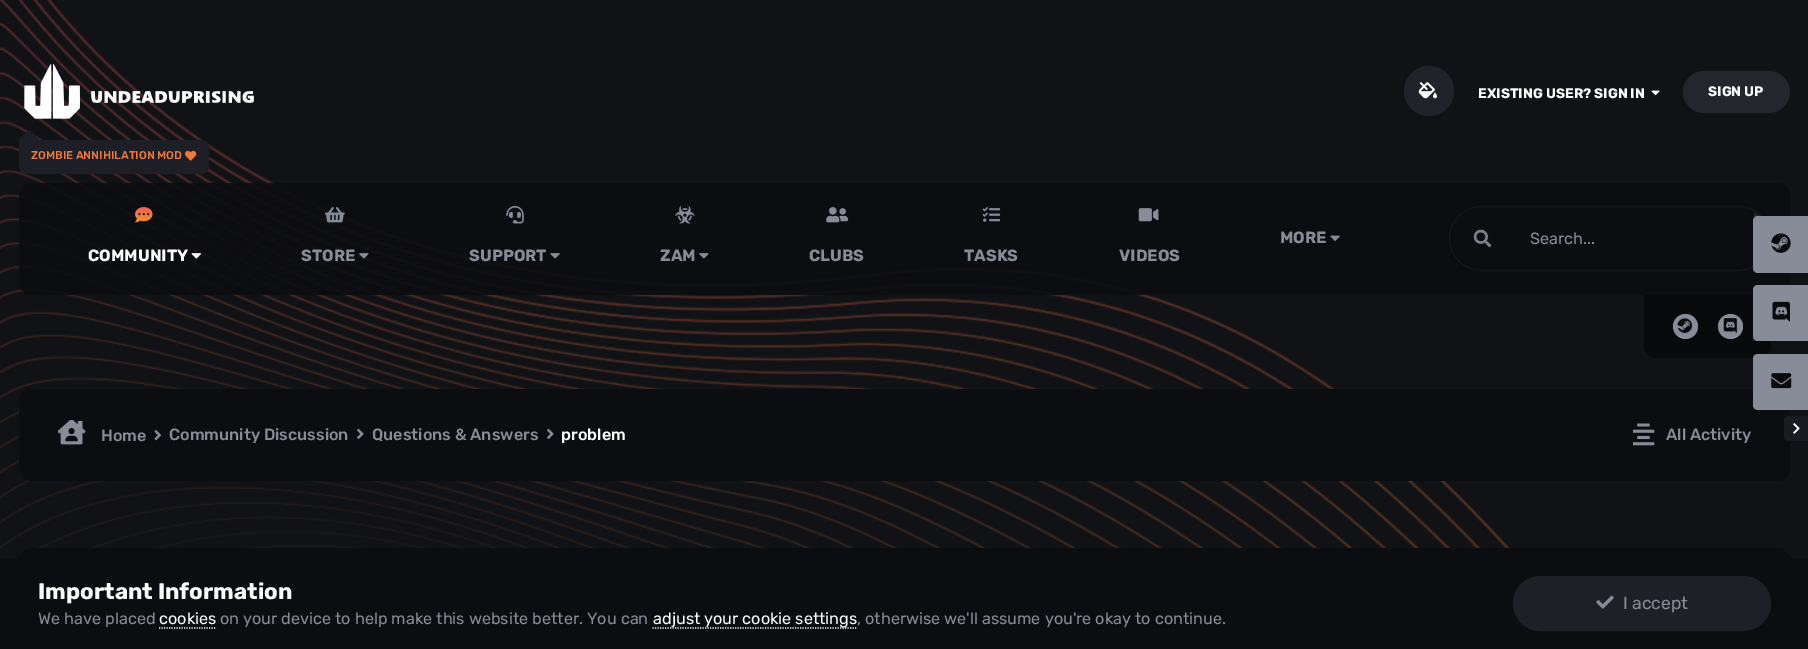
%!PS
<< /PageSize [1808 649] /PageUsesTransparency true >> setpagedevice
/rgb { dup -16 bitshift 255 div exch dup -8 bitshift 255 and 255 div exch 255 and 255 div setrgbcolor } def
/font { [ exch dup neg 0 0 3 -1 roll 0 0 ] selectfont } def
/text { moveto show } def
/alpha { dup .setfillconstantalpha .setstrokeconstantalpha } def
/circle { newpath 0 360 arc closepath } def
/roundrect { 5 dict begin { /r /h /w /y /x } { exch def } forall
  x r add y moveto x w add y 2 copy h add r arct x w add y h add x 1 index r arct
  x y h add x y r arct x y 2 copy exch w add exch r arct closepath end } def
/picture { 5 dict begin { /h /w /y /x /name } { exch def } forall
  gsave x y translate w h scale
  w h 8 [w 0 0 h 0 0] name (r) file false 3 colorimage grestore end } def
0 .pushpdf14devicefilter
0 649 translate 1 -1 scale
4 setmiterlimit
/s1 { /Rubik-Bold 13.75 font 16#FFFFFF rgb } def
/s2 { /Rubik-Medium 11.25 font 16#F07A3C rgb } def
/s3 { /Rubik-Bold 16.25 font 16#888B98 rgb } def
/s4 { /Rubik-Bold 16.25 font 16#FFFFFF rgb } def
/s5 { /Rubik-Regular 16.25 font 16#888B98 rgb } def
/s6 { /Rubik-Medium 16.25 font 16#888B98 rgb } def
/s7 { /Rubik-Medium 16.25 font 16#FFFFFF rgb } def
/s8 { /Rubik-Bold 22.5 font 16#FFFFFF rgb } def
/s9 { /Rubik-Regular 16.25 font 16#FFFFFF rgb } def
/s10 { /Rubik-Regular 17.5 font 16#888B98 rgb } def
16#111216 rgb
0 0 1808 649 rectfill
(pic1.raw) 0 0 1510 548 picture
16#21232B rgb
1429 91 25 circle fill
(pic2.raw) 1418 82 19 17 picture
s1
(EXISTING USER? SIGN IN) 1478 98 text
(pic3.raw) 1651 90 9 6 picture
16#24252D rgb
1683 71 107 42 21 roundrect fill
s1
(SIGN UP) 1708 96 text
(pic4.raw) 24 63 230 56 picture
16#1E1F26 rgb
19 140 moveto 201 140 lineto 205.5 140 209 143.5 209 148 curveto 209 166 lineto 209 170.5 205.5 174 201 174 curveto 27 174 lineto 22.5 174 19 170.5 19 166 curveto closepath fill
39 140 moveto 19 140 lineto 29 130 lineto closepath fill
s2
(ZOMBIE ANNIHILATION MOD) 31 159 text
(pic5.raw) 185 150 12 11 picture
0.9 alpha
16#0C0D10 rgb
19 183 1771 112 13 roundrect fill
1 alpha
s3
(MORE) 1280 243 text
(pic6.raw) 1330 235 10 6 picture
(pic7.raw) 135 207 18 16 picture
s4
(COMMUNITY) 88 261 text
(pic8.raw) 191 253 10 6 picture
(pic9.raw) 325 207 20 16 picture
s3
(STORE) 301 261 text
(pic10.raw) 359 253 10 6 picture
(pic11.raw) 506 206 18 18 picture
(SUPPORT) 469 261 text
(pic12.raw) 550 253 10 6 picture
(pic13.raw) 675 206 20 18 picture
(ZAM) 660 261 text
(pic14.raw) 699 253 10 6 picture
(pic15.raw) 826 207 23 16 picture
(CLUBS) 809 261 text
(pic16.raw) 982 207 19 15 picture
(TASKS) 964 261 text
(pic17.raw) 1138 208 21 14 picture
(VIDEOS) 1119 261 text
16#16171C rgb
1449.5 206.5 321 64 32 roundrect stroke
16#222222 rgb
1754 212.5 moveto 1763.5 218 lineto 1754 223.5 lineto closepath fill
(pic18.raw) 1473 229 19 19 picture
s5
(Search...) 1530 244 text
16#090A0C rgb
1644 295 moveto 1771 295 lineto 1771 345 lineto 1771 352 1765 358 1758 358 curveto 1657 358 lineto 1650 358 1644 352 1644 345 curveto closepath fill
16#888B98 rgb
1685.5 326.5 12.5 circle fill
(pic19.raw) 1677 318 15 15 picture
1730.5 326.5 12.5 circle fill
(pic20.raw) 1723 318 14 15 picture
1758 216 moveto 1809 216 lineto 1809 273 lineto 1758 273 lineto 1755 273 1753 271 1753 268 curveto 1753 221 lineto 1753 218 1755 216 1758 216 curveto closepath fill
(pic21.raw) 1771 233 20 20 picture
1758 285 moveto 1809 285 lineto 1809 341 lineto 1758 341 lineto 1755 341 1753 339 1753 336 curveto 1753 290 lineto 1753 287 1755 285 1758 285 curveto closepath fill
(pic22.raw) 1772 301 18 21 picture
16#0C0D11 rgb
19 389 1771 92 13 roundrect fill
16#888B98 rgb
1758 354 moveto 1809 354 lineto 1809 410 lineto 1758 410 lineto 1755 410 1753 408 1753 405 curveto 1753 359 lineto 1753 356 1755 354 1758 354 curveto closepath fill
(pic23.raw) 1771 373 21 16 picture
16#1B1C22 rgb
1789 416 moveto 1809 416 lineto 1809 441 lineto 1789 441 lineto 1786 441 1784 439 1784 436 curveto 1784 421 lineto 1784 418 1786 416 1789 416 curveto closepath fill
(pic24.raw) 1793 423 7 11 picture
(pic25.raw) 58 420 28 25 picture
s6
(Home) 101 441 text
(pic26.raw) 154 430 7 11 picture
(Community Discussion) 169 440 text
(pic27.raw) 357 428 7 11 picture
gsave
373 420 185 30 rectclip
(Questions & Answers) 372 440 text
grestore
(pic27.raw) 547 428 7 11 picture
s7
(problem) 561 440 text
(pic28.raw) 1633 423 22 23 picture
s6
(All Activity) 1666 440 text
16#0C0D11 rgb
19 548 1771 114 13 roundrect fill
0 558 1808 91 rectfill
s8
(Important Information) 38 599 text
s5
(We have placed) 38 624 text
s9
(cookies) 159 624 text
1.2 setlinewidth
[1.25 1.25] 0 setdash
159 628 moveto 216 628 lineto stroke
s5
(on your device to help make this website better. You can) 220 624 text
16#FFFFFF rgb
652.5 628 moveto 857.5 628 lineto stroke
(adjust your cookie settings) 653 624 text
s5
(, otherwise we'll assume you're okay to continue.) 857 624 text
16#1F2027 rgb
1513.5 576.5 257 54 27 roundrect gsave fill grestore
1 setlinewidth
[] 0 setdash
stroke
(pic29.raw) 1596 595 18 14 picture
s10
(I accept) 1623 609 text
.poppdf14devicefilter showpage
